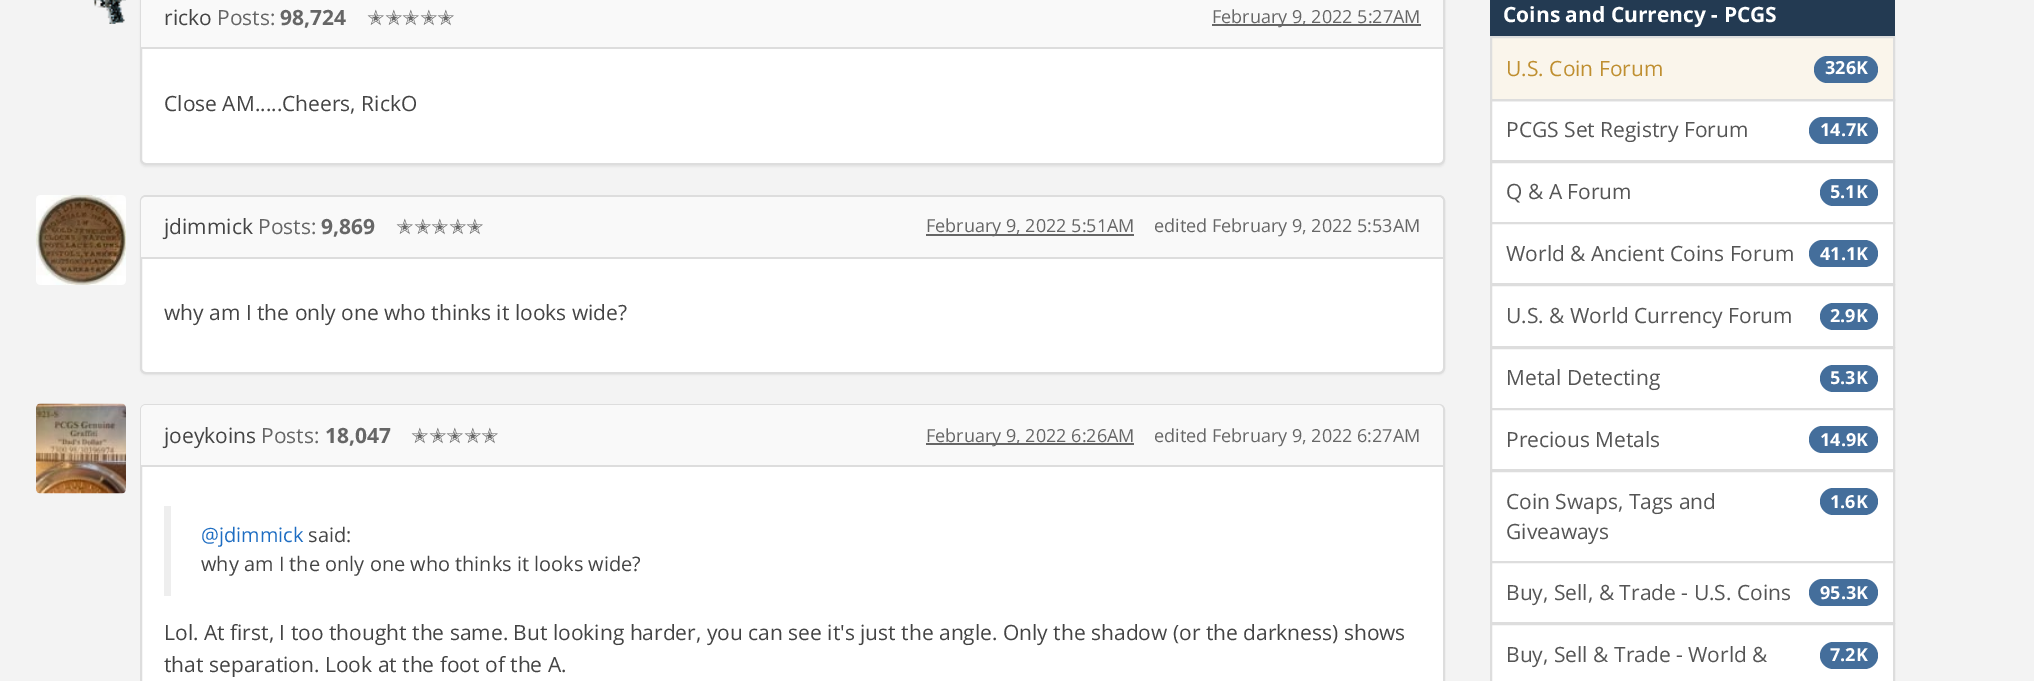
%!PS
<< /PageSize [2034 681] /PageUsesTransparency true >> setpagedevice
/rgb { dup -16 bitshift 255 div exch dup -8 bitshift 255 and 255 div exch 255 and 255 div setrgbcolor } def
/font { [ exch dup neg 0 0 3 -1 roll 0 0 ] selectfont } def
/text { moveto show } def
/alpha { dup .setfillconstantalpha .setstrokeconstantalpha } def
/roundrect { 5 dict begin { /r /h /w /y /x } { exch def } forall
  x r add y moveto x w add y 2 copy h add r arct x w add y h add x 1 index r arct
  x y h add x y r arct x y 2 copy exch w add exch r arct closepath end } def
/shadow { 12 dict begin { /a /b /q /h /w /y /x } { exch def } forall gsave /was 0 def
  9 -2 -9 { dup b mul 4 div /e exch def 1 sub .425 mul 2.718 exch exp 1 add a .99 .min exch div /now exch def
    1 1 now sub 1 was sub div sub alpha /was now def
    w h .min e 2 mul add 0 gt { x e sub y e sub w e 2 mul add h e 2 mul add
      q e add b .6 mul add w h .min 2 div e add .min 0 .max roundrect fill } if } for grestore end } def
/picture { 5 dict begin { /h /w /y /x /name } { exch def } forall
  gsave x y translate w h scale
  w h 8 [w 0 0 h 0 0] name (r) file false 3 colorimage grestore end } def
0 .pushpdf14devicefilter
0 681 translate 1 -1 scale
4 setmiterlimit
/s1 { /OpenSans-Regular 21 font 16#444444 rgb } def
/s2 { /OpenSans-Regular 21 font 16#666666 rgb } def
/s3 { /OpenSans-Bold 21 font 16#666666 rgb } def
/s4 { /DejaVuSans-Regular 21 font 16#666666 rgb } def
/s5 { /OpenSans-Regular 18 font 16#666666 rgb } def
/s6 { /OpenSans-Regular 19.95 font 16#1E6DC2 rgb } def
/s7 { /OpenSans-Regular 19.95 font 16#444444 rgb } def
/s8 { /OpenSans-Bold 21 font 16#FFFFFF rgb } def
/s9 { /OpenSans-Regular 21 font 16#BF8F31 rgb } def
/s10 { /OpenSans-Bold 18 font 16#FFFFFF rgb } def
/s11 { /OpenSans-Regular 21 font 16#555555 rgb } def
16#F3F3F3 rgb
0 0 2034 681 rectfill
16#000000 rgb
140 -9 1305 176 6 1 0.05 shadow
16#FFFFFF rgb
141 -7 1303 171 5 roundrect gsave fill grestore
16#DDDDDD rgb
2 setlinewidth
stroke
16#F9F9F9 rgb
141 0 1302 47 rectfill
16#DDDDDD rgb
141 47 1302 2 rectfill
(pic1.raw) 93 0 33 24 picture
s1
(ricko) 164 25 text
s2
(Posts:) 217 25 text
s3
(98,724) 280 25 text
s4
(✭✭✭✭✭) 367 25 text
1212 24 209 2 rectfill
s5
(February 9, 2022 5:27AM) 1212 23 text
s1
(Close AM.....Cheers, RickO) 164 111 text
16#000000 rgb
140 197 1305 178 6 1 0.05 shadow
16#FFFFFF rgb
141 196 1303 177 5 roundrect gsave fill grestore
16#DDDDDD rgb
stroke
16#F9F9F9 rgb
146 197 moveto 1438 197 lineto 1441 197 1443 199 1443 202 curveto 1443 258 lineto 141 258 lineto 141 202 lineto 141 199 143 197 146 197 curveto closepath fill
16#DDDDDD rgb
141 257 1302 2 rectfill
(pic2.raw) 36 195 90 90 picture
s1
(jdimmick) 164 234 text
s2
(Posts:) 258 234 text
s3
(9,869) 321 234 text
s4
(✭✭✭✭✭) 396 234 text
926 234 208 2 rectfill
s5
(February 9, 2022 5:51AM) 926 232 text
(edited February 9, 2022 5:53AM) 1154 232 text
s1
(why am I the only one who thinks it looks wide?) 164 320 text
16#FFFFFF rgb
141 405 1303 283 5 roundrect gsave fill grestore
16#DDDDDD rgb
stroke
16#F9F9F9 rgb
146 405 moveto 1438 405 lineto 1441 405 1443 407 1443 410 curveto 1443 467 lineto 141 467 lineto 141 410 lineto 141 407 143 405 146 405 curveto closepath fill
16#DDDDDD rgb
141 465 1302 2 rectfill
(pic3.raw) 36 403 90 91 picture
s1
(joeykoins) 164 443 text
s2
(Posts:) 261 443 text
s3
(18,047) 325 443 text
s4
(✭✭✭✭✭) 411 443 text
926 443 208 2 rectfill
s5
(February 9, 2022 6:26AM) 926 442 text
(edited February 9, 2022 6:27AM) 1154 442 text
16#EEEEEE rgb
164 506 7 90 rectfill
s6
(@jdimmick) 201 542 text
s7
(said:) 308 542 text
(why am I the only one who thinks it looks wide?) 201 571 text
s1
(Lol. At first, I too thought the same. But looking harder, you can see it's just the angle. Only the shadow \(or the darkness\) shows) 164 640 text
(that separation. Look at the foot of the A.) 164 672 text
16#233A52 rgb
1490 0 405 36 rectfill
s8
(Coins and Currency - PCGS) 1503 22 text
1491 100 moveto 1894 100 lineto 1894 161 lineto 1491 161 lineto closepath gsave fill grestore
16#DDDDDD rgb
stroke
16#FAF5EB rgb
1491 37 moveto 1894 37 lineto 1894 100 lineto 1491 100 lineto closepath gsave fill grestore
16#DDDDDD rgb
stroke
s9
(U.S. Coin Forum) 1506 76 text
16#446E9B rgb
1814 56 64 27 13.5 roundrect fill
s10
(326K) 1825 74 text
s11
(PCGS Set Registry Forum) 1506 137 text
16#446E9B rgb
1809 117 69 27 13.5 roundrect fill
s10
(14.7K) 1820 136 text
1491 162 moveto 1894 162 lineto 1894 223 lineto 1491 223 lineto closepath gsave fill grestore
16#DDDDDD rgb
stroke
s11
(Q & A Forum) 1506 199 text
16#446E9B rgb
1820 179 58 27 13.5 roundrect fill
s10
(5.1K) 1830 198 text
1491 223 moveto 1894 223 lineto 1894 284 lineto 1491 284 lineto closepath gsave fill grestore
16#DDDDDD rgb
stroke
s11
(World & Ancient Coins Forum) 1506 261 text
16#446E9B rgb
1809 240 69 27 13.5 roundrect fill
s10
(41.1K) 1820 260 text
1491 285 moveto 1894 285 lineto 1894 347 lineto 1491 347 lineto closepath gsave fill grestore
16#DDDDDD rgb
stroke
s11
(U.S. & World Currency Forum) 1506 323 text
16#446E9B rgb
1820 303 58 27 13.5 roundrect fill
s10
(2.9K) 1830 322 text
1491 348 moveto 1894 348 lineto 1894 409 lineto 1491 409 lineto closepath gsave fill grestore
16#DDDDDD rgb
stroke
s11
(Metal Detecting) 1506 385 text
16#446E9B rgb
1820 365 58 27 13.5 roundrect fill
s10
(5.3K) 1830 384 text
1491 409 moveto 1894 409 lineto 1894 470 lineto 1491 470 lineto closepath gsave fill grestore
16#DDDDDD rgb
stroke
s11
(Precious Metals) 1506 447 text
16#446E9B rgb
1809 426 69 27 13.5 roundrect fill
s10
(14.9K) 1820 446 text
1491 471 moveto 1894 471 lineto 1894 562 lineto 1491 562 lineto closepath gsave fill grestore
16#DDDDDD rgb
stroke
s11
(Coin Swaps, Tags and) 1506 509 text
16#446E9B rgb
1820 488 58 27 13.5 roundrect fill
s10
(1.6K) 1830 508 text
s11
(Giveaways) 1506 539 text
16#FFFFFF rgb
1491 562 moveto 1894 562 lineto 1894 623 lineto 1491 623 lineto closepath gsave fill grestore
16#DDDDDD rgb
stroke
s11
(Buy, Sell, & Trade - U.S. Coins) 1506 600 text
16#446E9B rgb
1809 579 69 27 13.5 roundrect fill
s10
(95.3K) 1820 599 text
1491 624 moveto 1894 624 lineto 1894 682 lineto 1491 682 lineto closepath gsave fill grestore
16#DDDDDD rgb
stroke
s11
(Buy, Sell & Trade - World &) 1506 662 text
16#446E9B rgb
1820 642 58 27 13.5 roundrect fill
s10
(7.2K) 1830 661 text
.poppdf14devicefilter showpage
